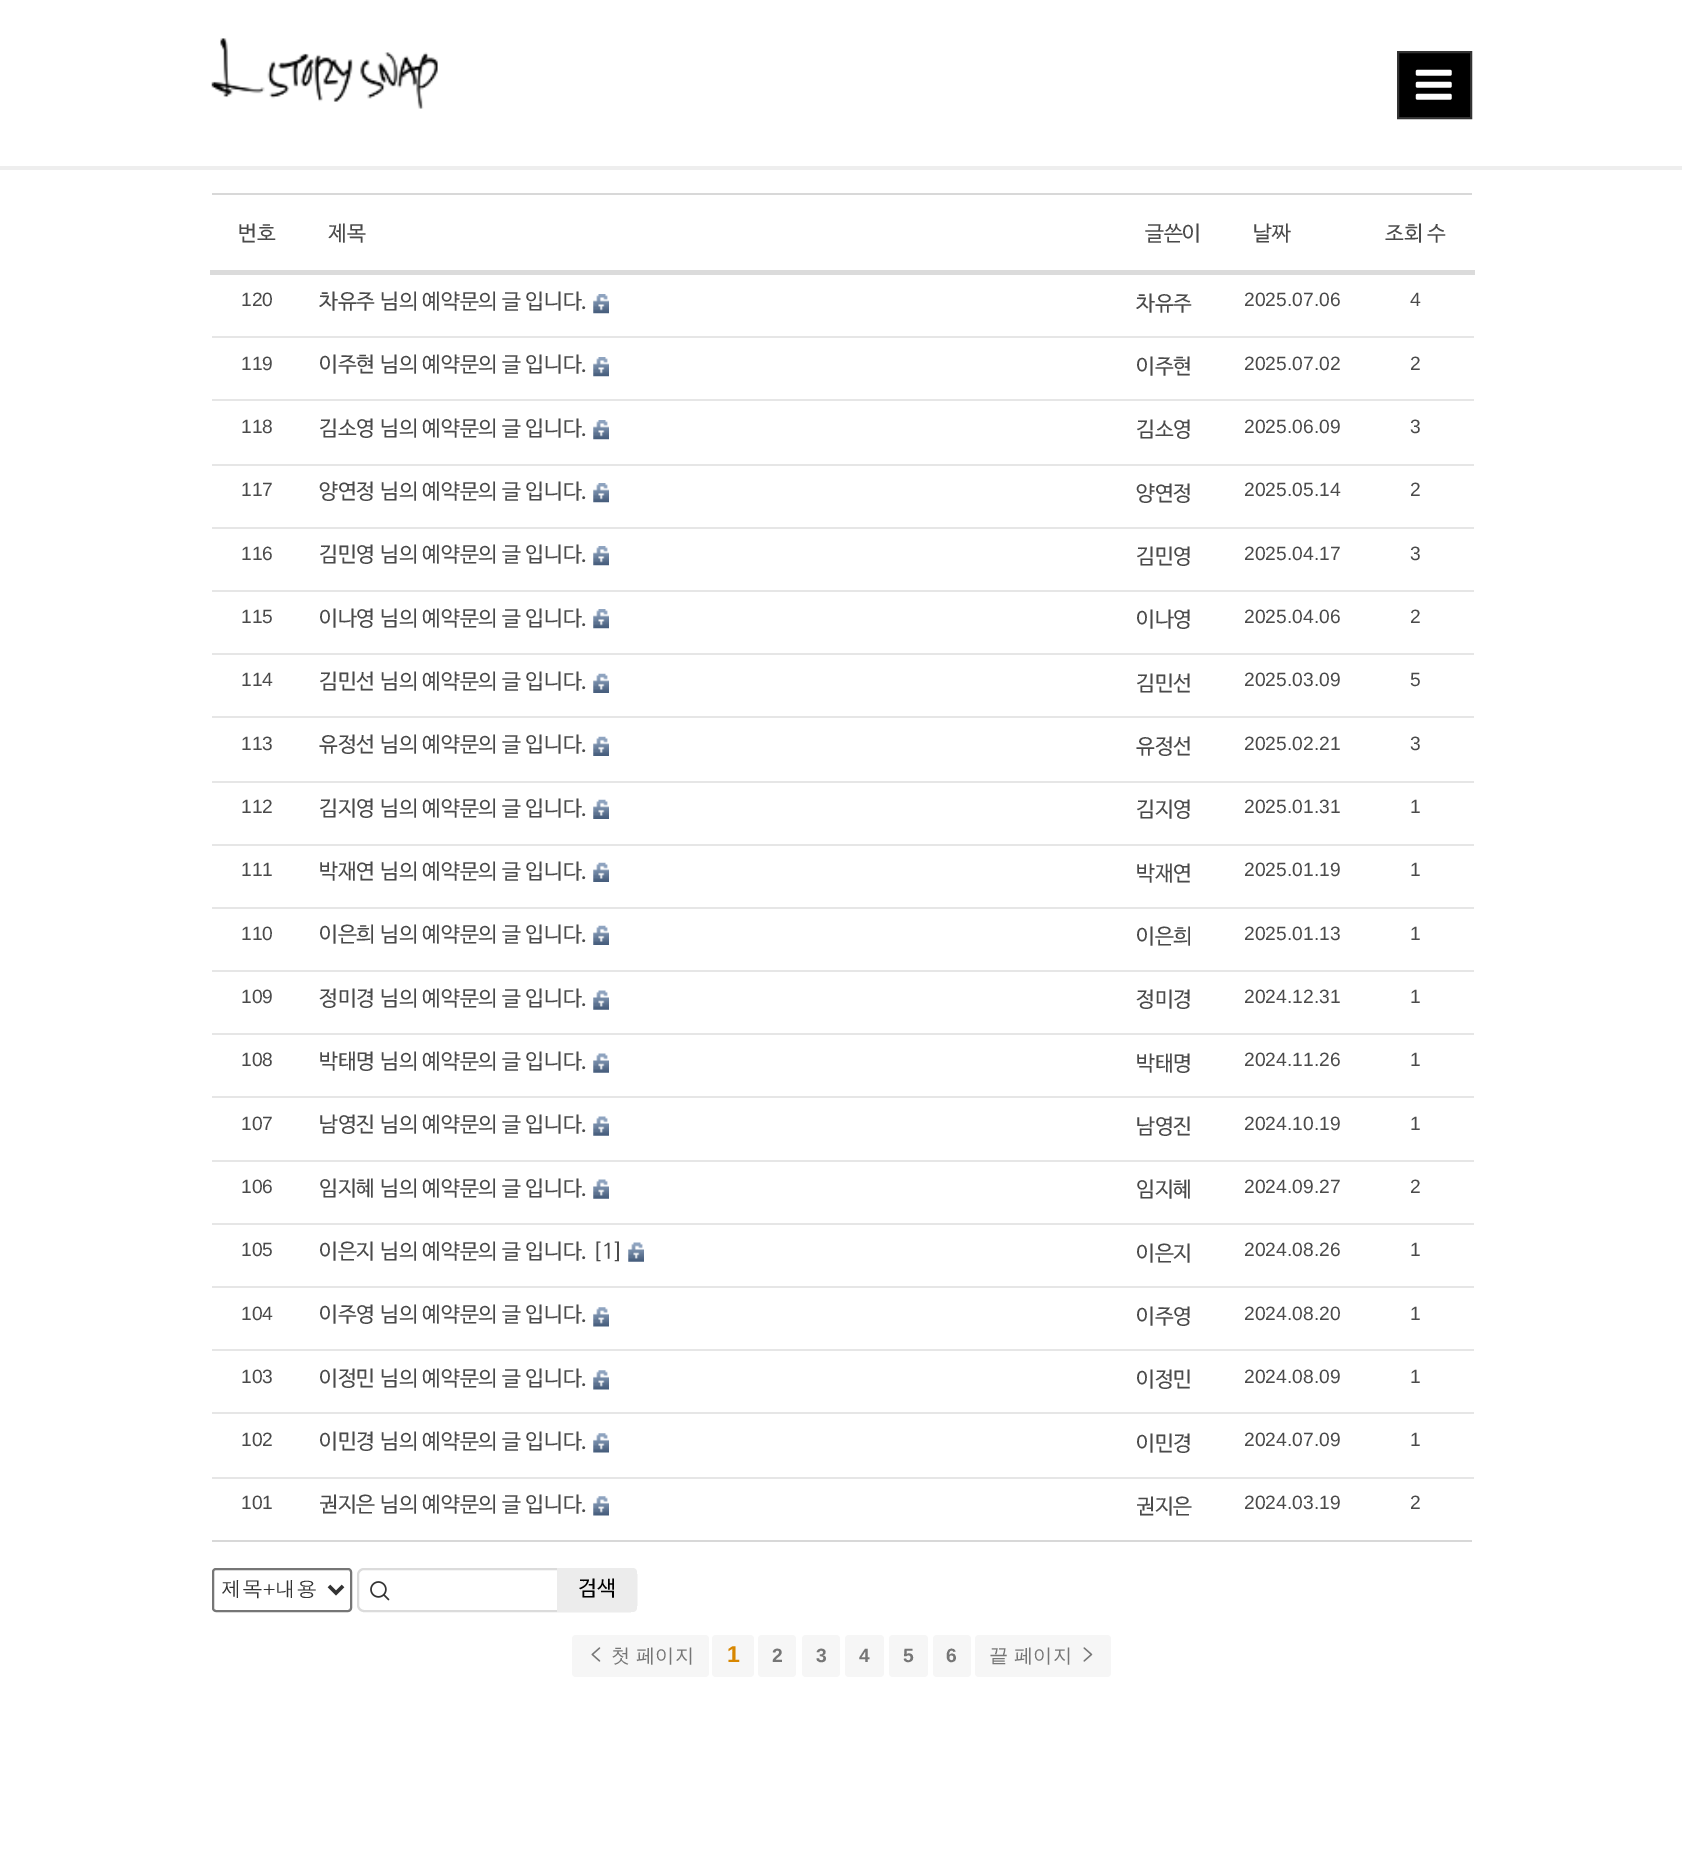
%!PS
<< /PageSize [1682 1849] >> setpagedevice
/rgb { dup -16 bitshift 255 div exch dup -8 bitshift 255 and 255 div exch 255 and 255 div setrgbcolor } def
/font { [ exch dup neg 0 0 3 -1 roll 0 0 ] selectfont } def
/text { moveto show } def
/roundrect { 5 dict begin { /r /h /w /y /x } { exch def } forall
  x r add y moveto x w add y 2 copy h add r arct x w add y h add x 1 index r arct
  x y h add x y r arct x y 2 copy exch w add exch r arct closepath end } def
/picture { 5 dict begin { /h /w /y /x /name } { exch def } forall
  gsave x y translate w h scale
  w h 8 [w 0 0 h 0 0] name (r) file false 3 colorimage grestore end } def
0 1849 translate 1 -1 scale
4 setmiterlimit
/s1 { /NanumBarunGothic-Regular 21 font 16#4A4A4A rgb } def
/s2 { /LiberationSans-Regular 19.25 font 16#4A4A4A rgb } def
/s3 { /Dotum-Regular 21 font 16#333333 rgb } def
/s4 { /NanumBarunGothic-Regular 21 font 16#000000 rgb } def
/s5 { /WenQuanYiZenHei-Medium 19.25 font 16#767676 rgb } def
/s6 { /LiberationSans-Bold 23 font 16#D88700 rgb } def
/s7 { /LiberationSans-Bold 19.25 font 16#767676 rgb } def
16#FFFFFF rgb
0 0 1682 1849 rectfill
16#EEEEEE rgb
0 166 1682 4 rectfill
(pic1.raw) 211 38 227 71 picture
16#000000 rgb
1398 52 moveto 1471 52 lineto 1471 118 lineto 1398 118 lineto closepath gsave fill grestore
16#333333 rgb
2 setlinewidth
stroke
(pic2.raw) 1415 69 37 31 picture
16#D8D8D8 rgb
212 193 1260 2 rectfill
212 1540 1260 2 rectfill
s1
(번호) 238 240 text
(제목) 328 240 text
(글쓴이) 1145 240 text
(날짜) 1253 240 text
16#DBDBDB rgb
210 270 1265 5 rectfill
s1
(조회 수) 1385 240 text
s2
(120) 241 306 text
s1
(차유주 님의 예약문의 글 입니다.) 319 308 text
(pic3.raw) 593 294 16 20 picture
(차유주) 1136 310 text
s2
(2025.07.06) 1244 306 text
16#E6E6E6 rgb
212 336 1262 2 rectfill
s2
(4) 1410 306 text
(119) 241 370 text
s1
(이주현 님의 예약문의 글 입니다.) 319 371 text
(pic3.raw) 593 357 16 20 picture
(이주현) 1136 373 text
s2
(2025.07.02) 1244 370 text
16#E6E6E6 rgb
212 399 1262 2 rectfill
s2
(2) 1410 370 text
(118) 241 433 text
s1
(김소영 님의 예약문의 글 입니다.) 319 435 text
(pic3.raw) 593 420 16 20 picture
(김소영) 1136 436 text
s2
(2025.06.09) 1244 433 text
16#E6E6E6 rgb
212 464 1262 2 rectfill
s2
(3) 1410 433 text
(117) 241 496 text
s1
(양연정 님의 예약문의 글 입니다.) 319 498 text
(pic3.raw) 593 483 16 20 picture
(양연정) 1136 500 text
s2
(2025.05.14) 1244 496 text
16#E6E6E6 rgb
212 527 1262 2 rectfill
s2
(2) 1410 496 text
(116) 241 560 text
s1
(김민영 님의 예약문의 글 입니다.) 319 561 text
(pic3.raw) 593 546 16 20 picture
(김민영) 1136 563 text
s2
(2025.04.17) 1244 560 text
16#E6E6E6 rgb
212 590 1262 2 rectfill
s2
(3) 1410 560 text
(115) 241 623 text
s1
(이나영 님의 예약문의 글 입니다.) 319 625 text
(pic3.raw) 593 609 16 20 picture
(이나영) 1136 626 text
s2
(2025.04.06) 1244 623 text
16#E6E6E6 rgb
212 653 1262 2 rectfill
s2
(2) 1410 623 text
(114) 241 686 text
s1
(김민선 님의 예약문의 글 입니다.) 319 688 text
(pic4.raw) 593 673 16 20 picture
(김민선) 1136 690 text
s2
(2025.03.09) 1244 686 text
16#E6E6E6 rgb
212 716 1262 2 rectfill
s2
(5) 1410 686 text
(113) 241 750 text
s1
(유정선 님의 예약문의 글 입니다.) 319 751 text
(pic4.raw) 593 736 16 20 picture
(유정선) 1136 753 text
s2
(2025.02.21) 1244 750 text
16#E6E6E6 rgb
212 781 1262 2 rectfill
s2
(3) 1410 750 text
(112) 241 813 text
s1
(김지영 님의 예약문의 글 입니다.) 319 815 text
(pic4.raw) 593 799 16 20 picture
(김지영) 1136 816 text
s2
(2025.01.31) 1244 813 text
16#E6E6E6 rgb
212 844 1262 2 rectfill
s2
(1) 1410 813 text
(111) 241 876 text
s1
(박재연 님의 예약문의 글 입니다.) 319 878 text
(pic4.raw) 593 862 16 20 picture
(박재연) 1136 880 text
s2
(2025.01.19) 1244 876 text
16#E6E6E6 rgb
212 907 1262 2 rectfill
s2
(1) 1410 876 text
(110) 241 940 text
s1
(이은희 님의 예약문의 글 입니다.) 319 941 text
(pic4.raw) 593 925 16 20 picture
(이은희) 1136 943 text
s2
(2025.01.13) 1244 940 text
16#E6E6E6 rgb
212 970 1262 2 rectfill
s2
(1) 1410 940 text
(109) 241 1003 text
s1
(정미경 님의 예약문의 글 입니다.) 319 1005 text
(pic5.raw) 593 990 16 20 picture
(정미경) 1136 1006 text
s2
(2024.12.31) 1244 1003 text
16#E6E6E6 rgb
212 1033 1262 2 rectfill
s2
(1) 1410 1003 text
(108) 241 1066 text
s1
(박태명 님의 예약문의 글 입니다.) 319 1068 text
(pic5.raw) 593 1053 16 20 picture
(박태명) 1136 1070 text
s2
(2024.11.26) 1244 1066 text
16#E6E6E6 rgb
212 1096 1262 2 rectfill
s2
(1) 1410 1066 text
(107) 241 1130 text
s1
(남영진 님의 예약문의 글 입니다.) 319 1131 text
(pic5.raw) 593 1116 16 20 picture
(남영진) 1136 1133 text
s2
(2024.10.19) 1244 1130 text
16#E6E6E6 rgb
212 1160 1262 2 rectfill
s2
(1) 1410 1130 text
(106) 241 1193 text
s1
(임지혜 님의 예약문의 글 입니다.) 319 1195 text
(pic5.raw) 593 1179 16 20 picture
(임지혜) 1136 1196 text
s2
(2024.09.27) 1244 1193 text
16#E6E6E6 rgb
212 1223 1262 2 rectfill
s2
(2) 1410 1193 text
(105) 241 1256 text
s1
(이은지 님의 예약문의 글 입니다. [1]) 319 1258 text
(pic5.raw) 628 1242 16 20 picture
(이은지) 1136 1260 text
s2
(2024.08.26) 1244 1256 text
16#E6E6E6 rgb
212 1286 1262 2 rectfill
s2
(1) 1410 1256 text
(104) 241 1320 text
s1
(이주영 님의 예약문의 글 입니다.) 319 1321 text
(pic6.raw) 593 1307 16 20 picture
(이주영) 1136 1323 text
s2
(2024.08.20) 1244 1320 text
16#E6E6E6 rgb
212 1349 1262 2 rectfill
s2
(1) 1410 1320 text
(103) 241 1383 text
s1
(이정민 님의 예약문의 글 입니다.) 319 1385 text
(pic6.raw) 593 1370 16 20 picture
(이정민) 1136 1386 text
s2
(2024.08.09) 1244 1383 text
16#E6E6E6 rgb
212 1412 1262 2 rectfill
s2
(1) 1410 1383 text
(102) 241 1446 text
s1
(이민경 님의 예약문의 글 입니다.) 319 1448 text
(pic6.raw) 593 1433 16 20 picture
(이민경) 1136 1450 text
s2
(2024.07.09) 1244 1446 text
16#E6E6E6 rgb
212 1477 1262 2 rectfill
s2
(1) 1410 1446 text
(101) 241 1509 text
s1
(권지은 님의 예약문의 글 입니다.) 319 1511 text
(pic6.raw) 593 1496 16 20 picture
(권지은) 1136 1513 text
s2
(2024.03.19) 1244 1509 text
(2) 1410 1509 text
(pic7.raw) 370 1581 20 20 picture
16#DBDBDB rgb
358 1569 278 42 6 roundrect stroke
16#767676 rgb
213 1569 138 42 3 roundrect stroke
16#333333 rgb
3.5 setlinewidth
329 1586 moveto 336 1593 lineto 343 1586 lineto stroke
s3
(제목+내용) 221 1597 text
16#ECECEC rgb
557 1568 moveto 633 1568 lineto 635 1568 637 1570 637 1572 curveto 637 1608 lineto 637 1610 635 1612 633 1612 curveto 557 1612 lineto closepath fill
s4
(검색) 578 1595 text
16#F6F6F6 rgb
572 1635 137 42 4 roundrect fill
(pic8.raw) 591 1647 10 15 picture
s5
(첫 페이지) 611 1662 text
16#F6F6F6 rgb
712 1635 42 42 4 roundrect fill
s6
(1) 727 1662 text
16#F6F6F6 rgb
758 1635 38 42 4 roundrect fill
s7
(2) 772 1662 text
16#F6F6F6 rgb
802 1635 38 42 4 roundrect fill
s7
(3) 816 1662 text
16#F6F6F6 rgb
845 1635 39 42 4 roundrect fill
s7
(4) 859 1662 text
16#F6F6F6 rgb
889 1635 39 42 4 roundrect fill
s7
(5) 903 1662 text
16#F6F6F6 rgb
933 1635 38 42 4 roundrect fill
s7
(6) 946 1662 text
16#F6F6F6 rgb
975 1635 136 42 4 roundrect fill
s5
(끝 페이지) 989 1662 text
(pic9.raw) 1083 1647 10 15 picture
showpage
